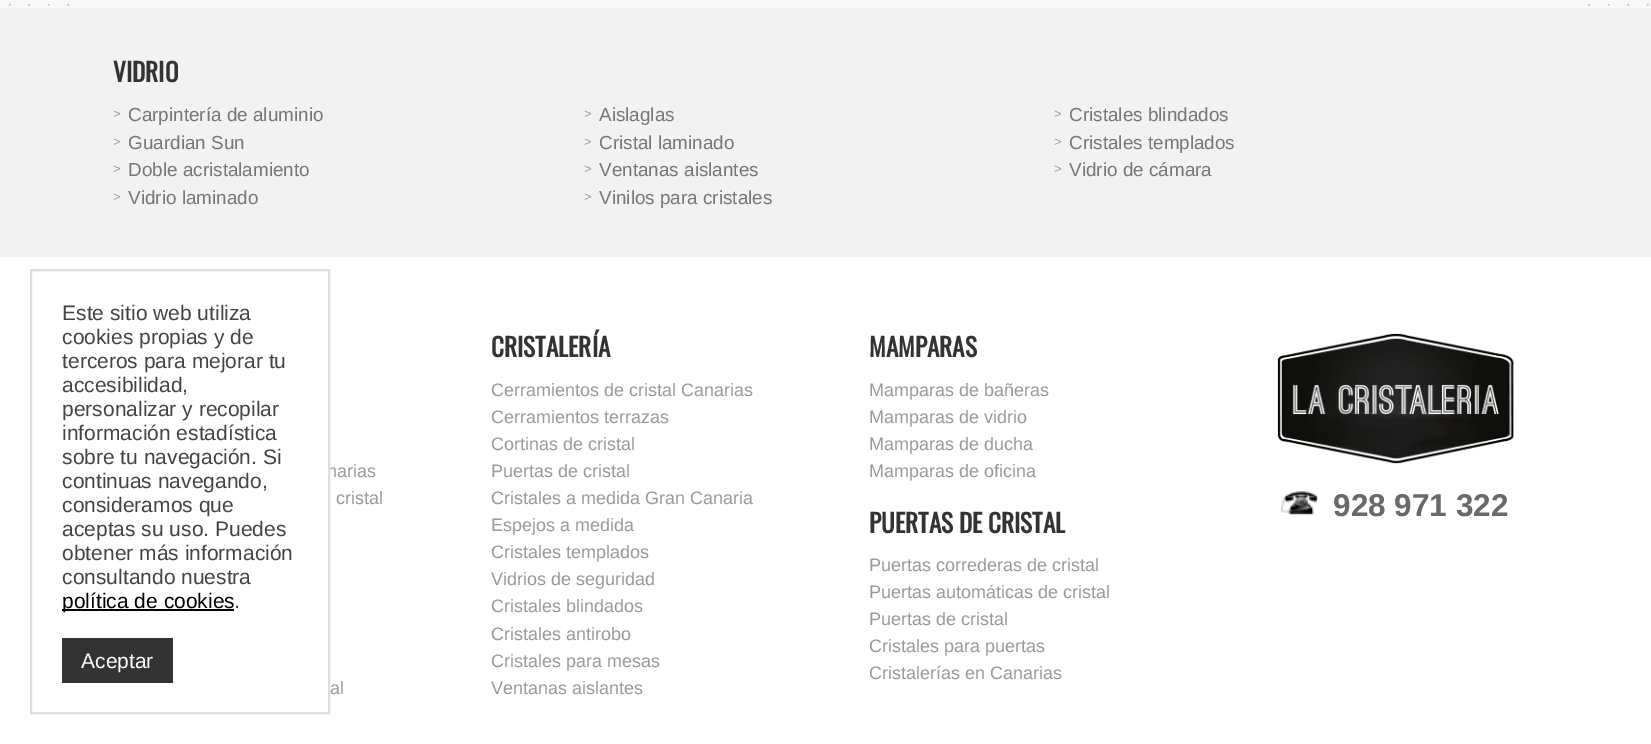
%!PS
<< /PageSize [1651 744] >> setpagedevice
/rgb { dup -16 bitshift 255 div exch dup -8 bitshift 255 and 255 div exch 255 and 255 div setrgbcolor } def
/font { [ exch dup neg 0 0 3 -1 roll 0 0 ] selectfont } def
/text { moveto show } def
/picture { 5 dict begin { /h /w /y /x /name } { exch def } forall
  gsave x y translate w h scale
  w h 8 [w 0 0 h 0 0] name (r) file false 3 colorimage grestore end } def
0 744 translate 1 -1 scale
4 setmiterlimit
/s1 { /Oswald-Bold 25.25 font 16#333333 rgb } def
/s2 { /LiberationSans-Regular 13 font 16#999999 rgb } def
/s3 { /LiberationSans-Regular 18.9 font 16#777777 rgb } def
/s4 { /LiberationSans-Regular 18 font 16#999999 rgb } def
/s5 { /LiberationSans-Regular 21 font 16#444444 rgb } def
/s6 { /LiberationSans-Regular 21 font 16#000000 rgb } def
/s7 { /LiberationSans-Regular 21 font 16#FFFFFF rgb } def
/s8 { /LiberationSans-Bold 31.5 font 16#696969 rgb } def
16#F8F8F8 rgb
0 0 1651 744 rectfill
(pic1.raw) 8 3 1641 3 picture
86 3 1491 3 rectfill
16#F2F2F2 rgb
0 8 1651 249 rectfill
s1
(VIDRIO) 113 82 text
s2
(>) 113 118 text
s3
(Carpintería de aluminio) 128 121 text
s2
(>) 584 118 text
s3
(Aislaglas) 599 121 text
s2
(>) 1054 118 text
s3
(Cristales blindados) 1069 121 text
s2
(>) 113 146 text
s3
(Guardian Sun) 128 149 text
s2
(>) 584 146 text
s3
(Cristal laminado) 599 149 text
s2
(>) 1054 146 text
s3
(Cristales templados) 1069 149 text
s2
(>) 113 173 text
s3
(Doble acristalamiento) 128 176 text
s2
(>) 584 173 text
s3
(Ventanas aislantes) 599 176 text
s2
(>) 1054 173 text
s3
(Vidrio de cámara) 1069 176 text
s2
(>) 113 201 text
s3
(Vidrio laminado) 128 204 text
s2
(>) 584 201 text
s3
(Vinilos para cristales) 599 204 text
16#FFFFFF rgb
0 257 1651 487 rectfill
s4
(narias) 327 477 text
16#DDDDDD rgb
2 setlinewidth
31 270 298 443 rectstroke
s5
(Este sitio web utiliza) 62 320 text
(cookies propias y de) 62 344 text
(terceros para mejorar tu) 62 368 text
(accesibilidad,) 62 392 text
(personalizar y recopilar) 62 416 text
(información estadística) 62 440 text
(sobre tu navegación. Si) 62 464 text
(continuas navegando,) 62 488 text
(consideramos que) 62 512 text
(aceptas su uso. Puedes) 62 536 text
(obtener más información) 62 560 text
(consultando nuestra) 62 584 text
16#000000 rgb
62 609 172 2 rectfill
(política de cookies) 62 608 text
s5
(.) 234 608 text
16#333333 rgb
62 638 111 45 rectfill
s7
(Aceptar) 81 668 text
s4
(cristal) 336 504 text
(al) 330 694 text
s1
(CRISTALERÍA) 491 357 text
s4
(Cerramientos de cristal Canarias) 491 396 text
(Cerramientos terrazas) 491 423 text
(Cortinas de cristal) 491 450 text
(Puertas de cristal) 491 477 text
(Cristales a medida Gran Canaria) 491 504 text
(Espejos a medida) 491 531 text
(Cristales templados) 491 558 text
(Vidrios de seguridad) 491 585 text
(Cristales blindados) 491 612 text
(Cristales antirobo) 491 640 text
(Cristales para mesas) 491 667 text
(Ventanas aislantes) 491 694 text
s1
(MAMPARAS) 869 357 text
s4
(Mamparas de bañeras) 869 396 text
(Mamparas de vidrio) 869 423 text
(Mamparas de ducha) 869 450 text
(Mamparas de oficina) 869 477 text
s1
(PUERTAS DE CRISTAL) 869 533 text
s4
(Puertas correderas de cristal) 869 571 text
(Puertas automáticas de cristal) 869 598 text
(Puertas de cristal) 869 625 text
(Cristales para puertas) 869 652 text
(Cristalerías en Canarias) 869 679 text
(pic2.raw) 1277 333 237 131 picture
(pic3.raw) 1281 491 37 24 picture
s8
(928 971 322) 1333 516 text
showpage
